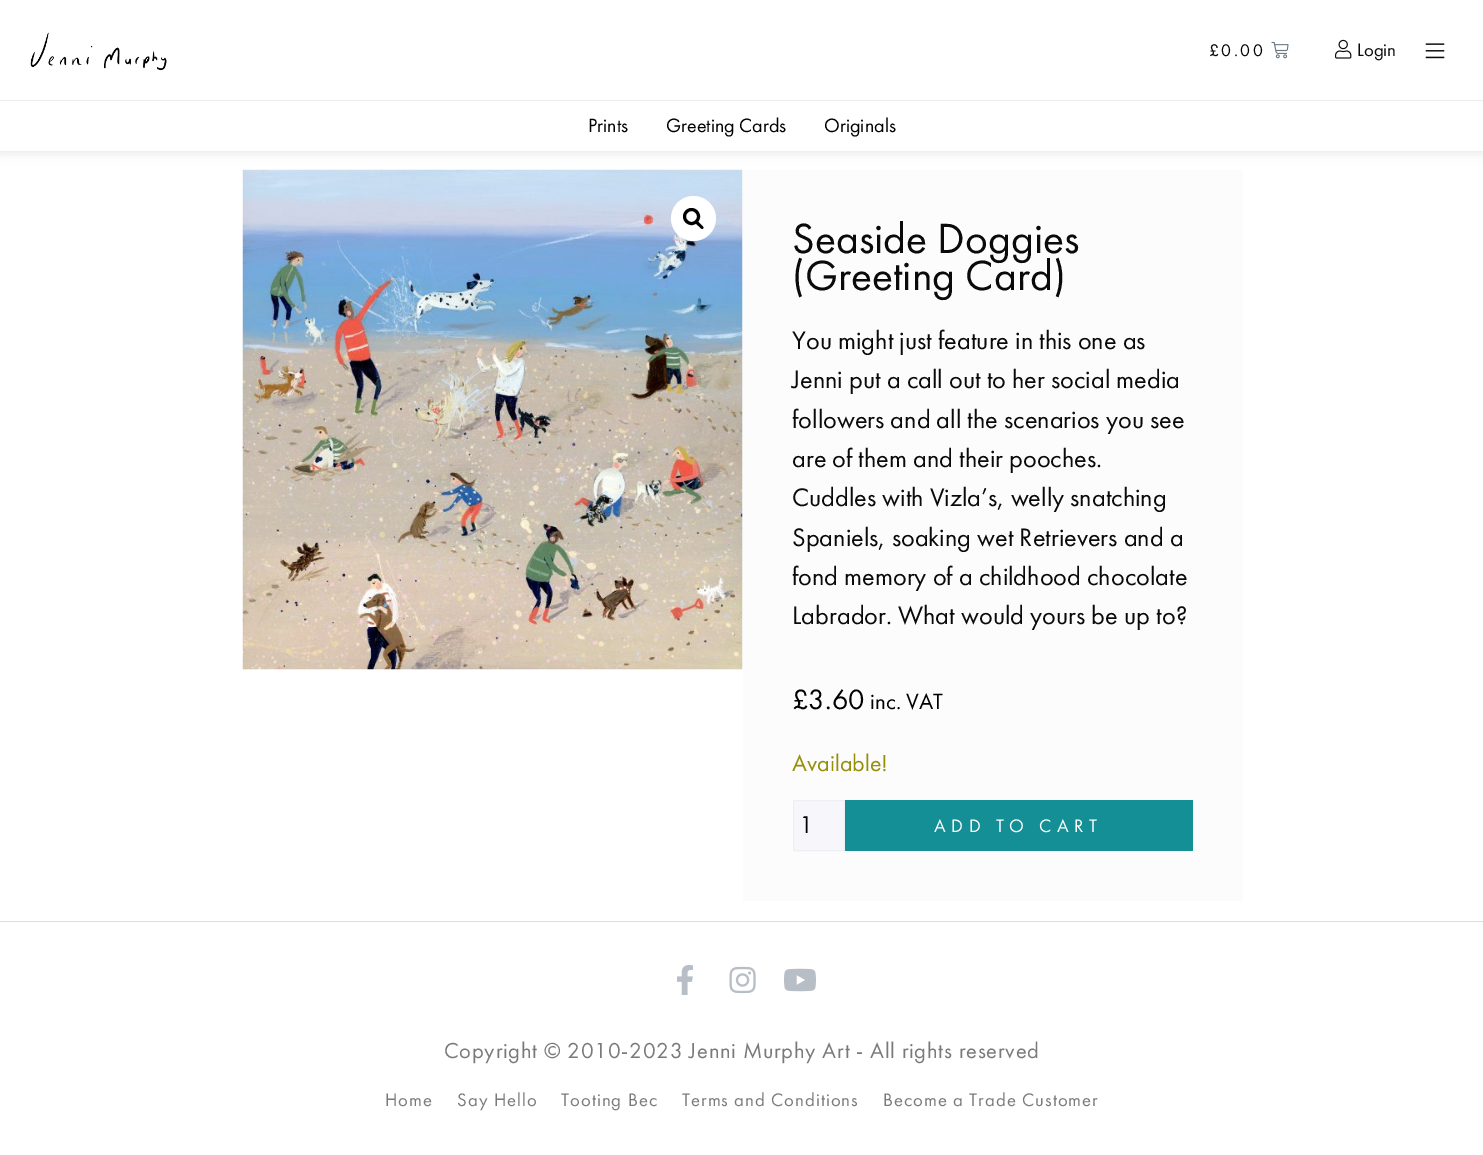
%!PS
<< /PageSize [1483 1155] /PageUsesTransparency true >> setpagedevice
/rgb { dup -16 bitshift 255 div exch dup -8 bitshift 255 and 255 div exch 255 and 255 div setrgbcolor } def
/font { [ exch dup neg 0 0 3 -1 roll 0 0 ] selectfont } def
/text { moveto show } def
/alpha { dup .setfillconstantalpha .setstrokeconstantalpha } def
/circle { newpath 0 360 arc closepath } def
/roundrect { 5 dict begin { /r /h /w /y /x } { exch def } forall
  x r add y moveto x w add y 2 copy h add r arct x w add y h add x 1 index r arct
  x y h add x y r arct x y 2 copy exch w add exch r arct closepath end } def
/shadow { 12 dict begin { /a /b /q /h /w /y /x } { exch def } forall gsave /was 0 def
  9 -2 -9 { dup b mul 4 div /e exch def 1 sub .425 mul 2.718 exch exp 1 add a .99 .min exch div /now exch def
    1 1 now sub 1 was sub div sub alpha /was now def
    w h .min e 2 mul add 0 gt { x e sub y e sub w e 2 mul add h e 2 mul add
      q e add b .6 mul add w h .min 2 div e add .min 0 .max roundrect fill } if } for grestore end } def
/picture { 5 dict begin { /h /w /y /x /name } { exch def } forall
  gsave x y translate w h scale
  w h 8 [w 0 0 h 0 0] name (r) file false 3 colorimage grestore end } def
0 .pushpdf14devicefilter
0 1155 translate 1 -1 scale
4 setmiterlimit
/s1 { /FuturaPT-Regular 18.75 font 16#0A0A0A rgb } def
/s2 { /FuturaPT-Regular 20 font 16#000000 rgb } def
/s3 { /FuturaPT-Regular 43.75 font 16#0A0A0A rgb } def
/s4 { /FuturaPT-Regular 26.25 font 16#0A0A0A rgb } def
/s5 { /FuturaPT-Regular 29 font 16#000000 rgb } def
/s6 { /FuturaPT-Regular 23 font 16#000000 rgb } def
/s7 { /FuturaPT-Regular 24 font 16#958E09 rgb } def
/s8 { /FuturaPT-Regular 25 font 16#000000 rgb } def
16#FFFFFF rgb
0 0 1483 1155 rectfill
(pic5.raw) 242 169 501 501 picture
16#000000 rgb
0 0 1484 151 0 6 0.12 shadow
16#FFFFFF rgb
0 0 1483 151 rectfill
(pic1.raw) 30 32 137 39 picture
/FuturaPT-Regular 17.5 font
16#000000 rgb
1209 56 moveto 2.5 0 (£0.00) ashow
(pic2.raw) 1271 41 18 18 picture
(pic3.raw) 1335 39 17 20 picture
s1
(Login) 1357 56 text
(pic4.raw) 1425 43 20 16 picture
16#EDEDED rgb
0 100 1483 1 rectfill
s2
(Prints) 588 132 text
(Greeting Cards) 666 132 text
(Originals) 824 132 text
16#FFFFFF rgb
693.5 218.5 22.5 circle fill
16#000000 rgb
3 setlinewidth
691.5 216.5 7 circle stroke
696 221.5 moveto 697.5 220 699.5 223.5 700.5 224 curveto 701 225 704.5 227 703 228.5 curveto 701.5 230 699.5 226.5 698.5 226 curveto 697.5 225 694.5 223 696 221.5 curveto closepath fill
16#FCFCFD rgb
743 170 500 731 rectfill
s3
(Seaside Doggies) 792 253 text
(\(Greeting Card\)) 792 290 text
s4
(You might just feature in this one as) 792 349 text
(Jenni put a call out to her social media) 792 388 text
(followers and all the scenarios you see) 792 428 text
(are of them and their pooches.) 792 467 text
(Cuddles with Vizla’s, welly snatching) 792 506 text
(Spaniels, soaking wet Retrievers and a) 792 546 text
(fond memory of a childhood chocolate) 792 585 text
(Labrador. What would yours be up to?) 792 624 text
s5
(£3.60) 792 709 text
s6
(inc. VAT) 870 709 text
s7
(Available!) 792 771 text
16#F7F7FB rgb
793.5 800.5 moveto 844.5 800.5 lineto 844.5 850.5 lineto 793.5 850.5 lineto closepath gsave fill grestore
16#EEEEF5 rgb
1 setlinewidth
stroke
s8
(1) 799 833 text
16#138F95 rgb
845 800 348 51 rectfill
/FuturaPT-Regular 18.75 font
16#FFFFFF rgb
934 832 moveto 5.5 0 (ADD TO CART) ashow
16#DDDDDD rgb
0 921 1483 1 rectfill
(pic6.raw) 677 965 16 30 picture
(pic7.raw) 729 966 27 28 picture
(pic8.raw) 784 968 32 24 picture
/FuturaPT-Regular 22.5 font
16#7A7A7A rgb
444 1058 moveto 0.75 0 (Copyright © 2010-2023 Jenni Murphy Art - All rights reserved) ashow
/FuturaPT-Regular 18.75 font
385 1106 moveto 1 0 (Home) ashow
457 1106 moveto 1 0 (Say Hello) ashow
561 1106 moveto 1 0 (Tooting Bec) ashow
682 1106 moveto 1 0 (Terms and Conditions) ashow
883 1106 moveto 1 0 (Become a Trade Customer) ashow
.poppdf14devicefilter showpage
